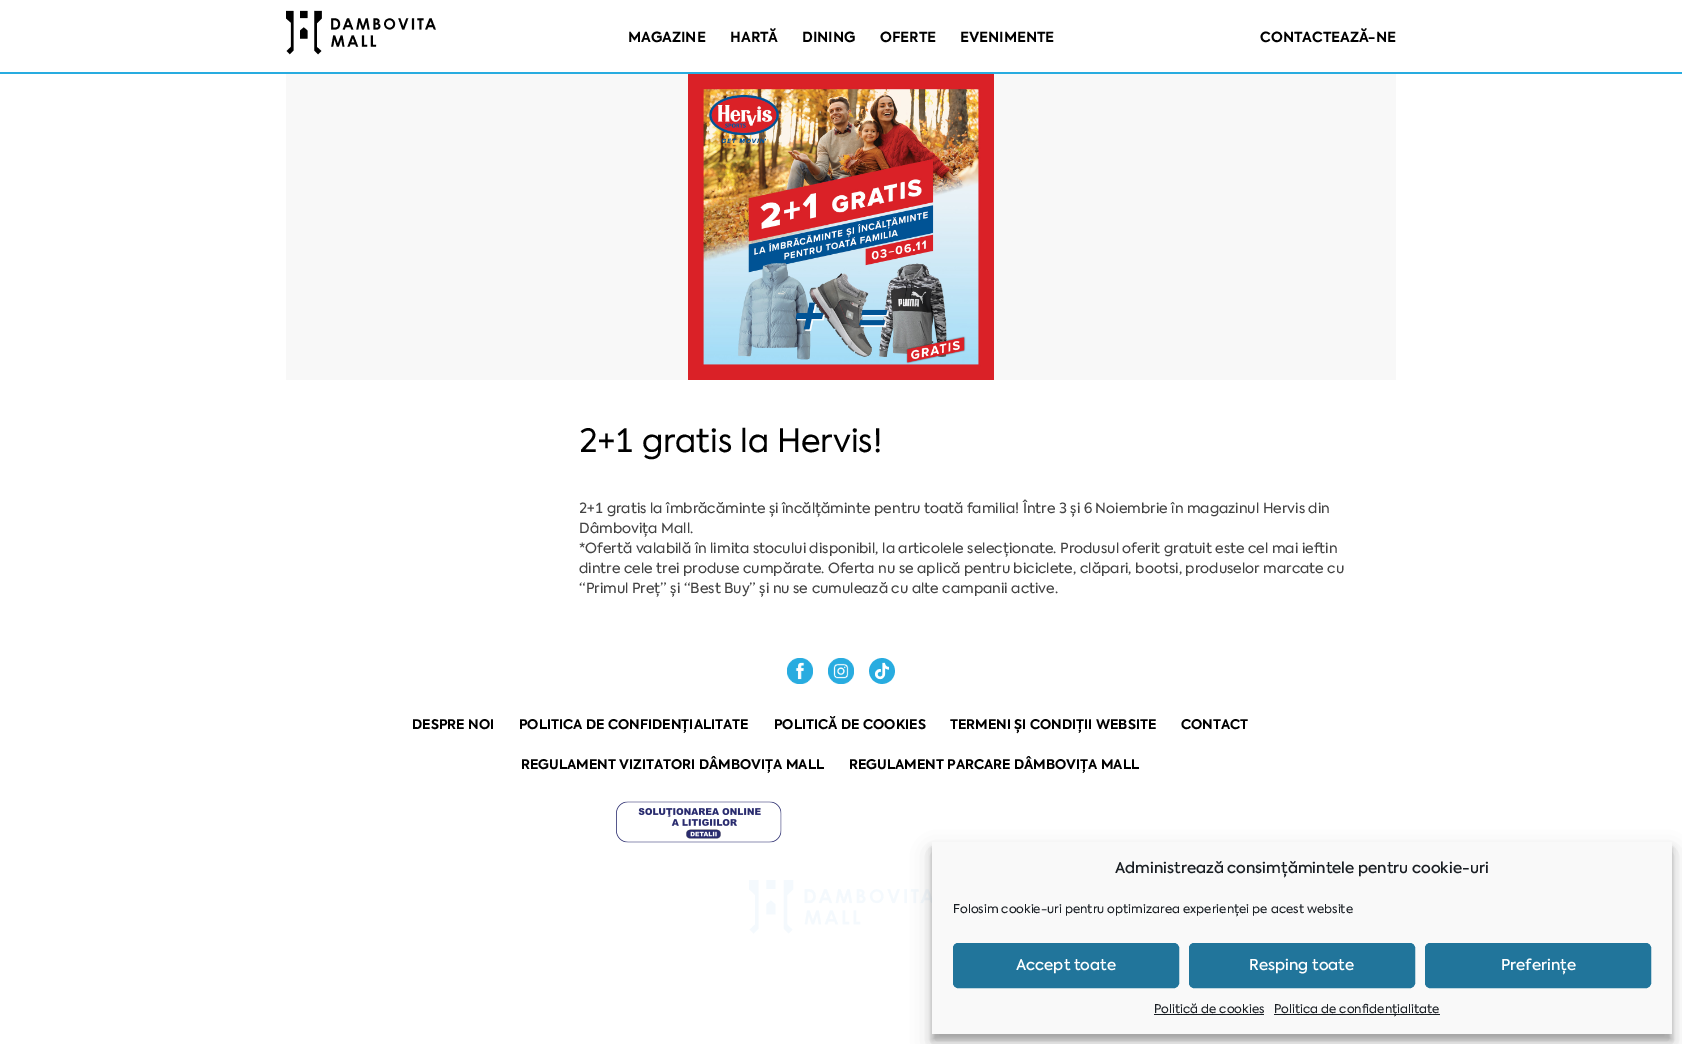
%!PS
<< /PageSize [1682 1044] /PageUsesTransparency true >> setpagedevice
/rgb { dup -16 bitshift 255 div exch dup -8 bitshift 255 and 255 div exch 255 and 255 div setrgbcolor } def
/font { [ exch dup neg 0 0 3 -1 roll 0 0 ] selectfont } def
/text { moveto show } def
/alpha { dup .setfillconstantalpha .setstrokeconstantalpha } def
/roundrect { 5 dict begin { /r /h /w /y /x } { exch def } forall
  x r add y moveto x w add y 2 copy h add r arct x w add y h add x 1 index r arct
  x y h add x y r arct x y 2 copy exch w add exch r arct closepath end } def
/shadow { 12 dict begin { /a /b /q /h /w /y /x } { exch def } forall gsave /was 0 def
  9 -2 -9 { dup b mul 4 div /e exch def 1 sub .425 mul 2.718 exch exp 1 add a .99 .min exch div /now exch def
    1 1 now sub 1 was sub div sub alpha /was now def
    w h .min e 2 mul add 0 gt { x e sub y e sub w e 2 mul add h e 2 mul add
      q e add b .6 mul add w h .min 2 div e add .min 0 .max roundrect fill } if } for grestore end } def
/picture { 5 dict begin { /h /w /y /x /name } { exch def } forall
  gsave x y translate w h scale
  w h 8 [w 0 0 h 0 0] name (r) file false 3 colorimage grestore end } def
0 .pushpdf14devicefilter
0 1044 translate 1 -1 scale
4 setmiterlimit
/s1 { /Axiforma-Bold 14 font 16#000000 rgb } def
/s2 { /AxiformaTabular-Regular 32 font 16#000000 rgb } def
/s3 { /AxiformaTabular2-Regular 14 font 16#444444 rgb } def
/s4 { /Axiforma-Regular 14 font 16#444444 rgb } def
/s5 { /Axiforma-Bold 13.3 font 16#000000 rgb } def
/s6 { /Axiforma-Medium 15 font 16#191E23 rgb } def
/s7 { /Axiforma-Regular 12 font 16#191E23 rgb } def
/s8 { /Axiforma-Medium 15 font 16#FFFFFF rgb } def
16#FFFFFF rgb
0 0 1682 1044 rectfill
16#28ACE0 rgb
0 72 1682 2 rectfill
(pic1.raw) 286 10 150 45 picture
s1
(MAGAZINE) 628 42 text
(HARTĂ) 730 42 text
(DINING) 802 42 text
(OFERTE) 880 42 text
(EVENIMENTE) 960 42 text
(CONTACTEAZĂ-NE) 1260 42 text
16#F8F8F8 rgb
286 74 1110 306 rectfill
(pic2.raw) 688 74 306 306 picture
s2
(2+1 gratis la Hervis!) 579 452 text
s3
(2+1 gratis la îmbrăcăminte și încălțăminte pentru toată familia! Între 3 și 6 Noiembrie în magazinul Hervis din) 579 513 text
s4
(Dâmbovița Mall.) 579 533 text
(*Ofertă valabilă în limita stocului disponibil, la articolele selecționate. Produsul oferit gratuit este cel mai ieftin) 579 553 text
(dintre cele trei produse cumpărate. Oferta nu se aplică pentru biciclete, clăpari, bootsi, produselor marcate cu) 579 573 text
(“Primul Preț” și “Best Buy” și nu se cumulează cu alte campanii active.) 579 593 text
(pic3.raw) 787 658 26 26 picture
(pic4.raw) 828 658 26 26 picture
(pic5.raw) 869 658 26 26 picture
s5
(DESPRE NOI) 412 729 text
(POLITICA DE CONFIDENȚIALITATE) 519 729 text
(POLITICĂ DE COOKIES) 774 729 text
(TERMENI ȘI CONDIȚII WEBSITE) 950 729 text
(CONTACT) 1181 729 text
(REGULAMENT VIZITATORI DÂMBOVIȚA MALL) 521 769 text
(REGULAMENT PARCARE DÂMBOVIȚA MALL) 849 769 text
(pic6.raw) 616 801 166 42 picture
(pic7.raw) 749 880 183 54 picture
932 848 740 192 0 3 0.23 shadow
932 852 740 192 0 10 0.19 shadow
16#F9F9F9 rgb
932 842 740 192 rectfill
s6
(Administrează consimțămintele pentru cookie-uri) 1115 873 text
s7
(Folosim cookie-uri pentru optimizarea experienței pe acest website) 953 913 text
16#21759B rgb
953.5 943.5 225 44 4.5 roundrect gsave fill grestore
stroke
s8
(Accept toate) 1016 970 text
16#21759B rgb
1189.5 943.5 225 44 4.5 roundrect gsave fill grestore
stroke
s8
(Resping toate) 1249 970 text
16#21759B rgb
1425.5 943.5 225 44 4.5 roundrect gsave fill grestore
stroke
s8
(Preferințe) 1501 970 text
s7
(Politică de cookies) 1154 1013 text
1154 1014 110 1 rectfill
1274 1014 166 1 rectfill
(Politica de confidențialitate) 1274 1013 text
.poppdf14devicefilter showpage
